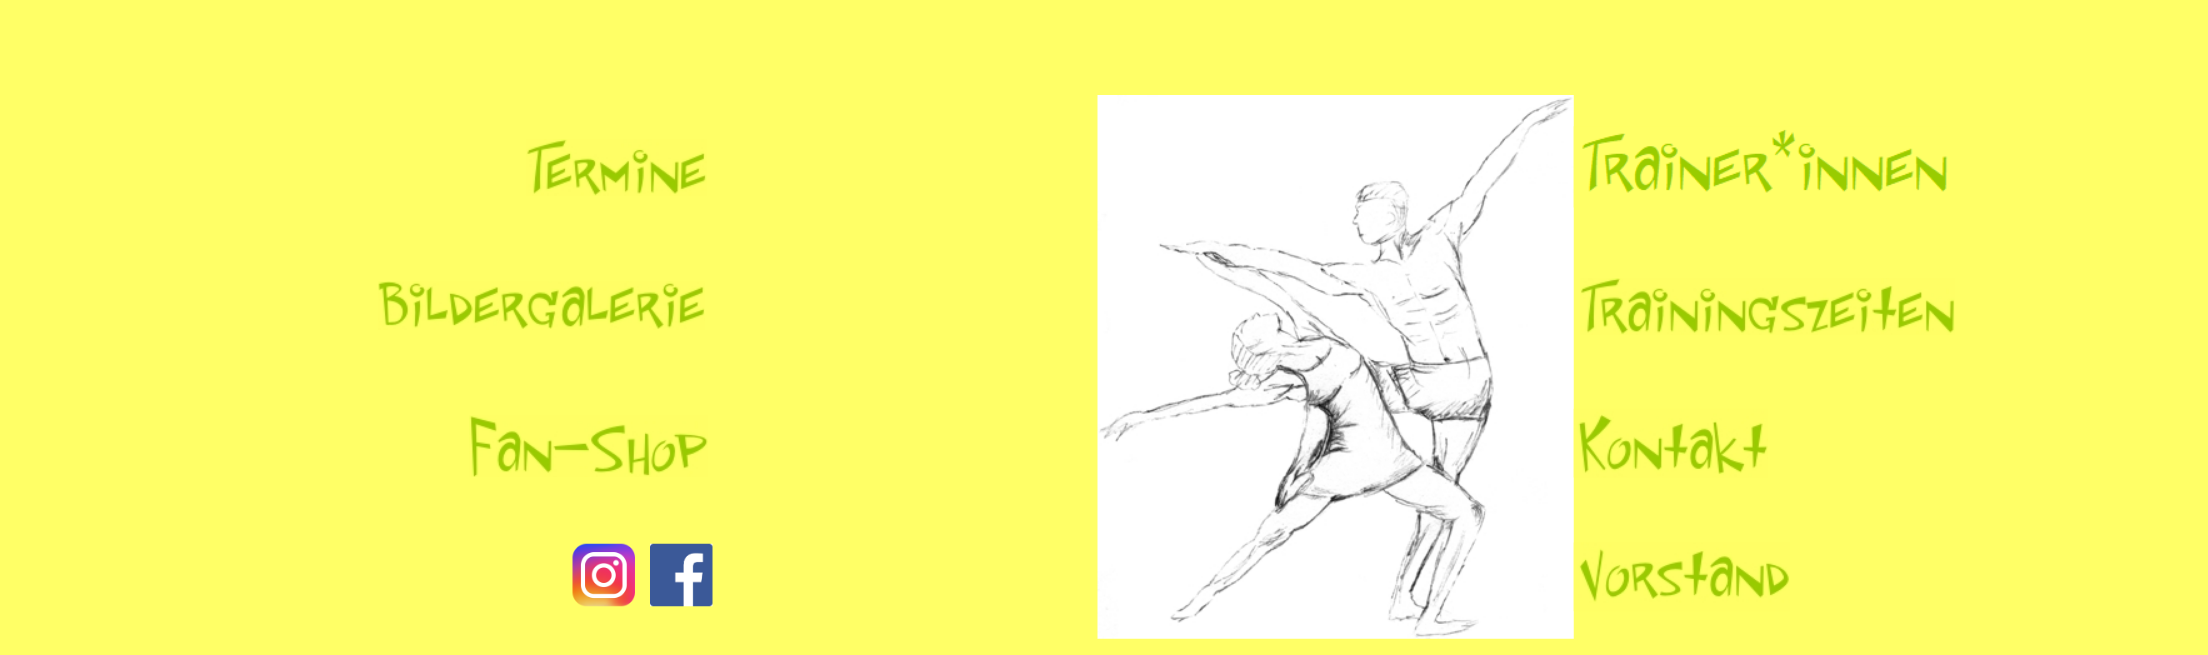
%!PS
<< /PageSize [2208 655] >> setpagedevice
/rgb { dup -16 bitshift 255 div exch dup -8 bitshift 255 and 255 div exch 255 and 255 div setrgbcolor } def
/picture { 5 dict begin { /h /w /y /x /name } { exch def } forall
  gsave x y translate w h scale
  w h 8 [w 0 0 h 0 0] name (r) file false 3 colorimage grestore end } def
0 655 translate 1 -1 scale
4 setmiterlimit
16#FFFF66 rgb
0 0 2208 655 rectfill
(pic1.raw) 526 139 181 57 picture
(pic2.raw) 1097 95 477 544 picture
(pic3.raw) 1573 126 375 82 picture
(pic4.raw) 378 281 327 49 picture
(pic5.raw) 1580 278 375 57 picture
(pic6.raw) 469 415 239 62 picture
(pic7.raw) 1573 408 195 70 picture
(pic8.raw) 572 543 63 64 picture
(pic9.raw) 650 543 63 64 picture
(pic10.raw) 1573 542 217 70 picture
showpage
